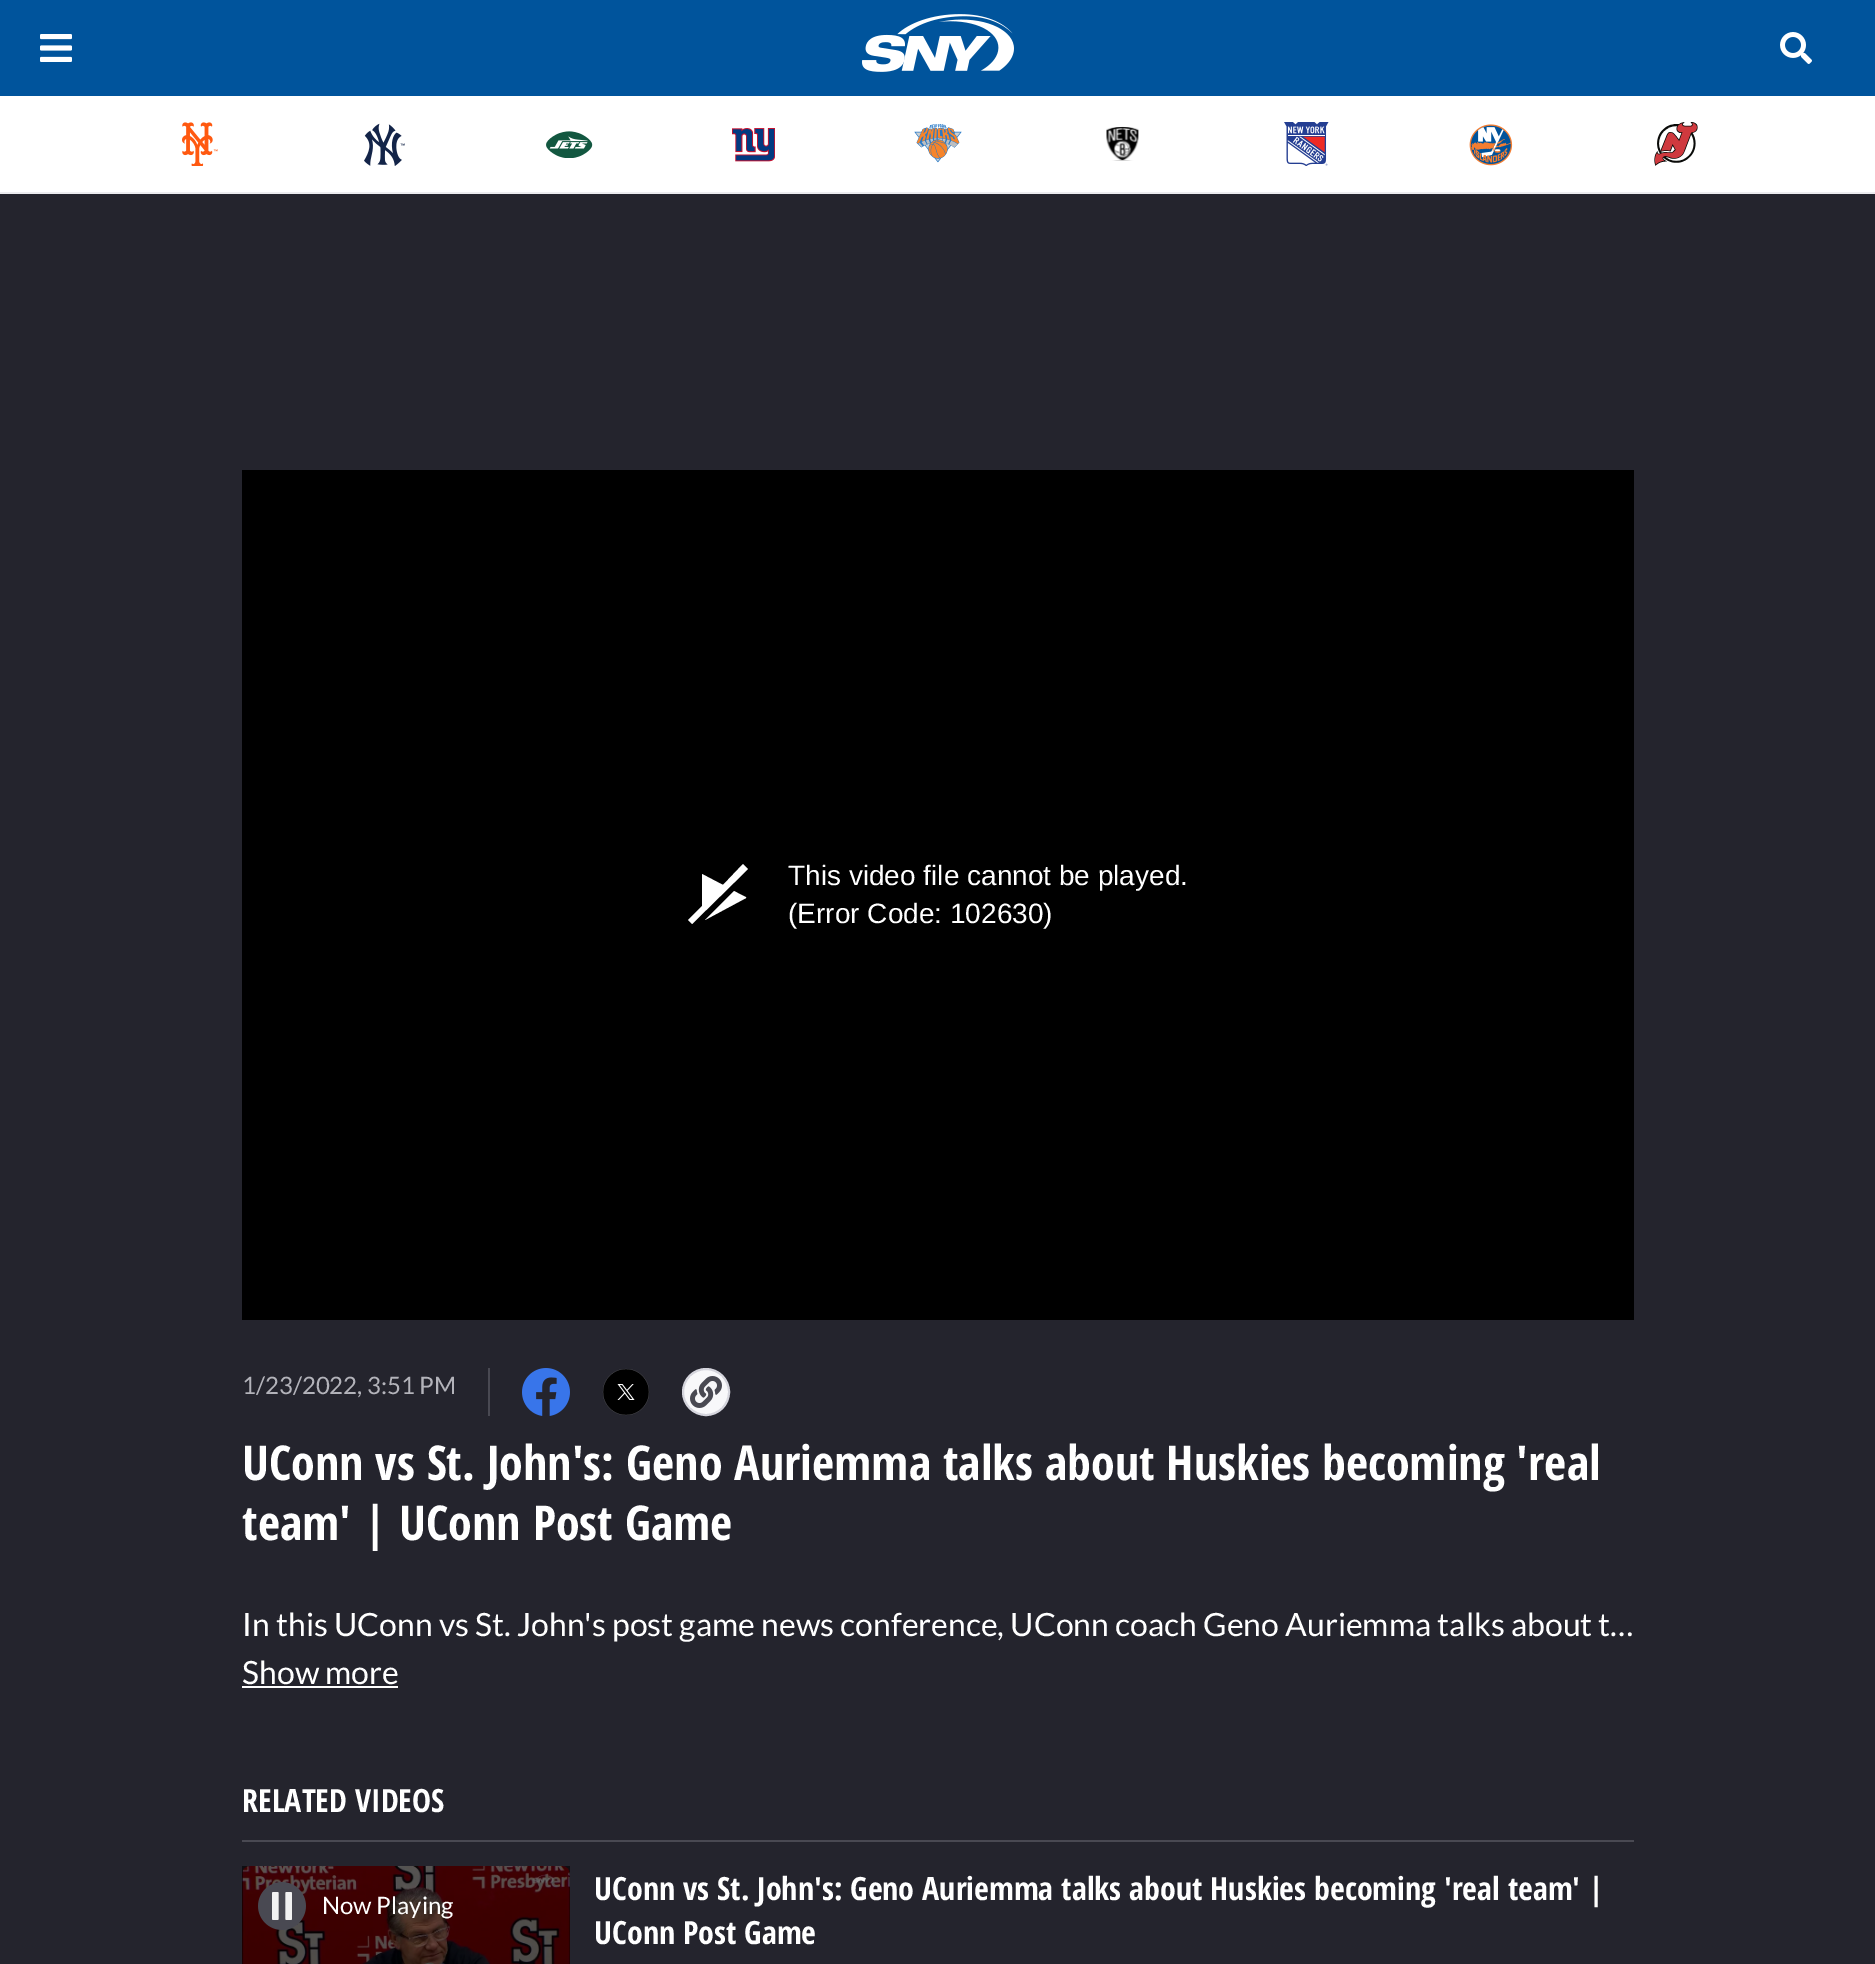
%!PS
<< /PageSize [1875 1964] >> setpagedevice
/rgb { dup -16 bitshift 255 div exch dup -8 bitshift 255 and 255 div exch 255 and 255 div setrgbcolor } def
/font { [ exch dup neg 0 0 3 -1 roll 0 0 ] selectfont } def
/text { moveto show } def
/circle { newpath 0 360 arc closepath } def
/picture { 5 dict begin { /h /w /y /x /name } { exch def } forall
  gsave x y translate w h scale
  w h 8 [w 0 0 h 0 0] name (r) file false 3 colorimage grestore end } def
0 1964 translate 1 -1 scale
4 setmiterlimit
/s1 { /LiberationSans-Regular 28 font 16#FFFFFF rgb } def
/s2 { /Lato-Regular 24 font 16#B3B3BA rgb } def
/s3 { /OpenSansCondensed-Bold 48 font 16#FFFFFF rgb } def
/s4 { /Lato-Regular 32 font 16#FFFFFF rgb } def
/s5 { /OpenSansCondensed-Bold 32 font 16#FFFFFF rgb } def
/s6 { /Lato-Regular 24 font 16#FFFFFF rgb } def
16#FFFFFF rgb
0 0 1875 1964 rectfill
16#00549C rgb
0 0 1875 96 rectfill
(pic1.raw) 40 34 32 28 picture
(pic2.raw) 862 14 152 58 picture
(pic3.raw) 1780 32 32 32 picture
(pic4.raw) 182 122 36 44 picture
(pic5.raw) 364 123 41 43 picture
(pic6.raw) 546 131 47 27 picture
(pic7.raw) 732 128 43 34 picture
(pic8.raw) 914 124 48 39 picture
(pic9.raw) 1106 126 33 35 picture
(pic10.raw) 1284 122 45 44 picture
(pic11.raw) 1469 124 44 42 picture
(pic12.raw) 1654 122 44 44 picture
16#EBEBEF rgb
0 192 1875 2 rectfill
16#24242D rgb
0 194 1875 1770 rectfill
16#0E0E12 rgb
242 1866 328 8 rectfill
16#000000 rgb
242 470 1392 850 rectfill
16#FFFFFF rgb
746 898 moveto 705 920 lineto 734 891 lineto 745 897 747 897 746 898 curveto closepath 743 864 moveto 723 885 lineto 702 874 lineto 702 906 lineto 688 920 lineto 692 924 lineto 748 869 lineto closepath fill
s1
(This video file cannot be played.) 788 885 text
(\(Error Code: 102630\)) 788 923 text
s2
(1/23/2022, 3:51 PM) 242 1394 text
16#494952 rgb
488 1368 2 48 rectfill
(pic13.raw) 522 1368 48 48 picture
(pic14.raw) 602 1368 48 48 picture
16#F8F8FA rgb
706 1392 23 circle gsave fill grestore
16#D5D5DD rgb
2 setlinewidth
stroke
(pic15.raw) 690 1376 32 32 picture
s3
(UConn vs St. John's: Geno Auriemma talks about Huskies becoming 'real) 242 1480 text
(team' | UConn Post Game) 242 1540 text
s4
(In this UConn vs St. John's post game news conference, UConn coach Geno Auriemma talks about t…) 242 1636 text
(Show more) 242 1684 text
242 1686 156 2 rectfill
16#494952 rgb
242 1840 1392 2 rectfill
s5
(RELATED VIDEOS) 242 1812 text
(pic16.raw) 242 1866 328 98 picture
(pic17.raw) 258 1882 48 48 picture
s6
(Now Playing) 322 1914 text
s5
(UConn vs St. John's: Geno Auriemma talks about Huskies becoming 'real team' |) 594 1900 text
(UConn Post Game) 594 1944 text
showpage
